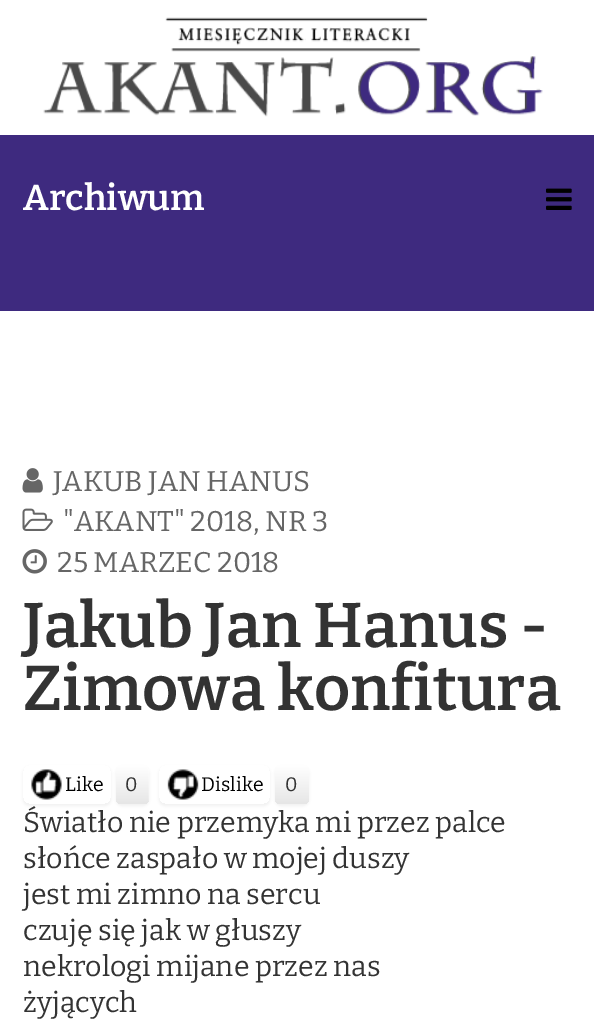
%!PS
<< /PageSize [594 1020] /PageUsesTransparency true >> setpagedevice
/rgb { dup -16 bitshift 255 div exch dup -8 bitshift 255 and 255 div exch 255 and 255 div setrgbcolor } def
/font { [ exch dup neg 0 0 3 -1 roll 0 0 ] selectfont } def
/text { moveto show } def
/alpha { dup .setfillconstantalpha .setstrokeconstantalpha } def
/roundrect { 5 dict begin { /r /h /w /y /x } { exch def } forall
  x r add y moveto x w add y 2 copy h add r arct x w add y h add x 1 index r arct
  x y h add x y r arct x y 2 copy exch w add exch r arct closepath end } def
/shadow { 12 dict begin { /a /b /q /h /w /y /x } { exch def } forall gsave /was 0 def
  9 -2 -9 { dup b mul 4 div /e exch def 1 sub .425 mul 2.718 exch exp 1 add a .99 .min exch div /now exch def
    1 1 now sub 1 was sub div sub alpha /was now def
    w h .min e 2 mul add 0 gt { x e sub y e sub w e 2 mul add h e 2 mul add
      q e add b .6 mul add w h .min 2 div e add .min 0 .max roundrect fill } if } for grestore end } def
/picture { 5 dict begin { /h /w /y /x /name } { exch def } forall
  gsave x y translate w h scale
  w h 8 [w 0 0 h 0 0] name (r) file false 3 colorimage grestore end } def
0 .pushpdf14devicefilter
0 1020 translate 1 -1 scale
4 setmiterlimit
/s1 { /Bitter-SemiBold 36 font 16#FFFFFF rgb } def
/s2 { /Bitter-Regular 28.5 font 16#666666 rgb } def
/s3 { /Bitter-SemiBold 63 font 16#333333 rgb } def
/s4 { /Bitter-Regular 19.5 font 16#000000 rgb } def
/s5 { /Bitter-Regular 19.5 font 16#333333 rgb } def
/s6 { /Bitter-Regular 28.5 font 16#333333 rgb } def
16#FFFFFF rgb
0 0 594 1020 rectfill
(pic1.raw) 43 17 500 100 picture
16#3E2A7F rgb
0 135 594 176 rectfill
(pic2.raw) 546 188 26 22 picture
s1
(Archiwum) 23 210 text
(pic3.raw) 22 468 21 25 picture
s2
(JAKUB JAN HANUS) 53 491 text
(pic4.raw) 22 508 31 23 picture
("AKANT" 2018, NR 3) 63 531 text
(pic5.raw) 22 549 25 25 picture
(25 MARZEC 2018) 57 572 text
s3
(Jakub Jan Hanus -) 23 647 text
(Zimowa konfitura) 23 710 text
gsave
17 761 moveto 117 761 lineto 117 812 lineto 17 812 lineto closepath 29 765 moveto 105 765 lineto 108.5 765 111 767.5 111 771 curveto 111 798 lineto 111 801.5 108.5 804 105 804 curveto 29 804 lineto 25.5 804 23 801.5 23 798 curveto 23 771 lineto 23 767.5 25.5 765 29 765 curveto closepath eoclip newpath
16#000000 rgb
23 767 88 39 6 1.5 0.05 shadow
grestore
(pic6.raw) 31 769 31 31 picture
s4
(Like) 65 791 text
116 767 33 39 6 1.5 0.05 shadow
gsave 116 765 33 39 6 roundrect clip newpath
<< /ShadingType 2 /ColorSpace /DeviceRGB /Coords [132 765 132 804] /Extend [true true] /Function << /FunctionType 2 /Domain [0 1] /C0 [1 1 1] /C1 [0.902 0.902 0.902] /N 1 >> >> shfill grestore
0.2 alpha
16#FFFFFF rgb
122 766 moveto 143.5 766 lineto 148.5 767 148 772.5 148 776.5 curveto 148 801.5 lineto 148.5 800.5 149 799.5 149 798 curveto 149 771 lineto 149 767.5 146.5 765 143 765 curveto 122 765 lineto 118.5 765 116 767.5 116 771 curveto 116 772 lineto 116 769 118 766 122 766 curveto closepath fill
1 alpha
s5
(0) 125 791 text
gsave
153 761 moveto 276 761 lineto 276 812 lineto 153 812 lineto closepath 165 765 moveto 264 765 lineto 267.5 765 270 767.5 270 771 curveto 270 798 lineto 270 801.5 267.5 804 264 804 curveto 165 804 lineto 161.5 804 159 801.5 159 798 curveto 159 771 lineto 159 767.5 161.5 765 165 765 curveto closepath eoclip newpath
16#000000 rgb
159 767 111 39 6 1.5 0.05 shadow
grestore
(pic7.raw) 167 769 32 31 picture
s4
(Dislike) 201 791 text
275 767 34 39 6 1.5 0.05 shadow
gsave 275 765 34 39 6 roundrect clip newpath
<< /ShadingType 2 /ColorSpace /DeviceRGB /Coords [292 765 292 804] /Extend [true true] /Function << /FunctionType 2 /Domain [0 1] /C0 [1 1 1] /C1 [0.902 0.902 0.902] /N 1 >> >> shfill grestore
s5
(0) 285 791 text
s6
(Światło nie przemyka mi przez palce) 23 832 text
(słońce zaspało w mojej duszy) 23 868 text
(jest mi zimno na sercu) 23 904 text
(czuję się jak w głuszy) 23 940 text
(nekrologi mijane przez nas) 23 976 text
(żyjących) 23 1012 text
.poppdf14devicefilter showpage
